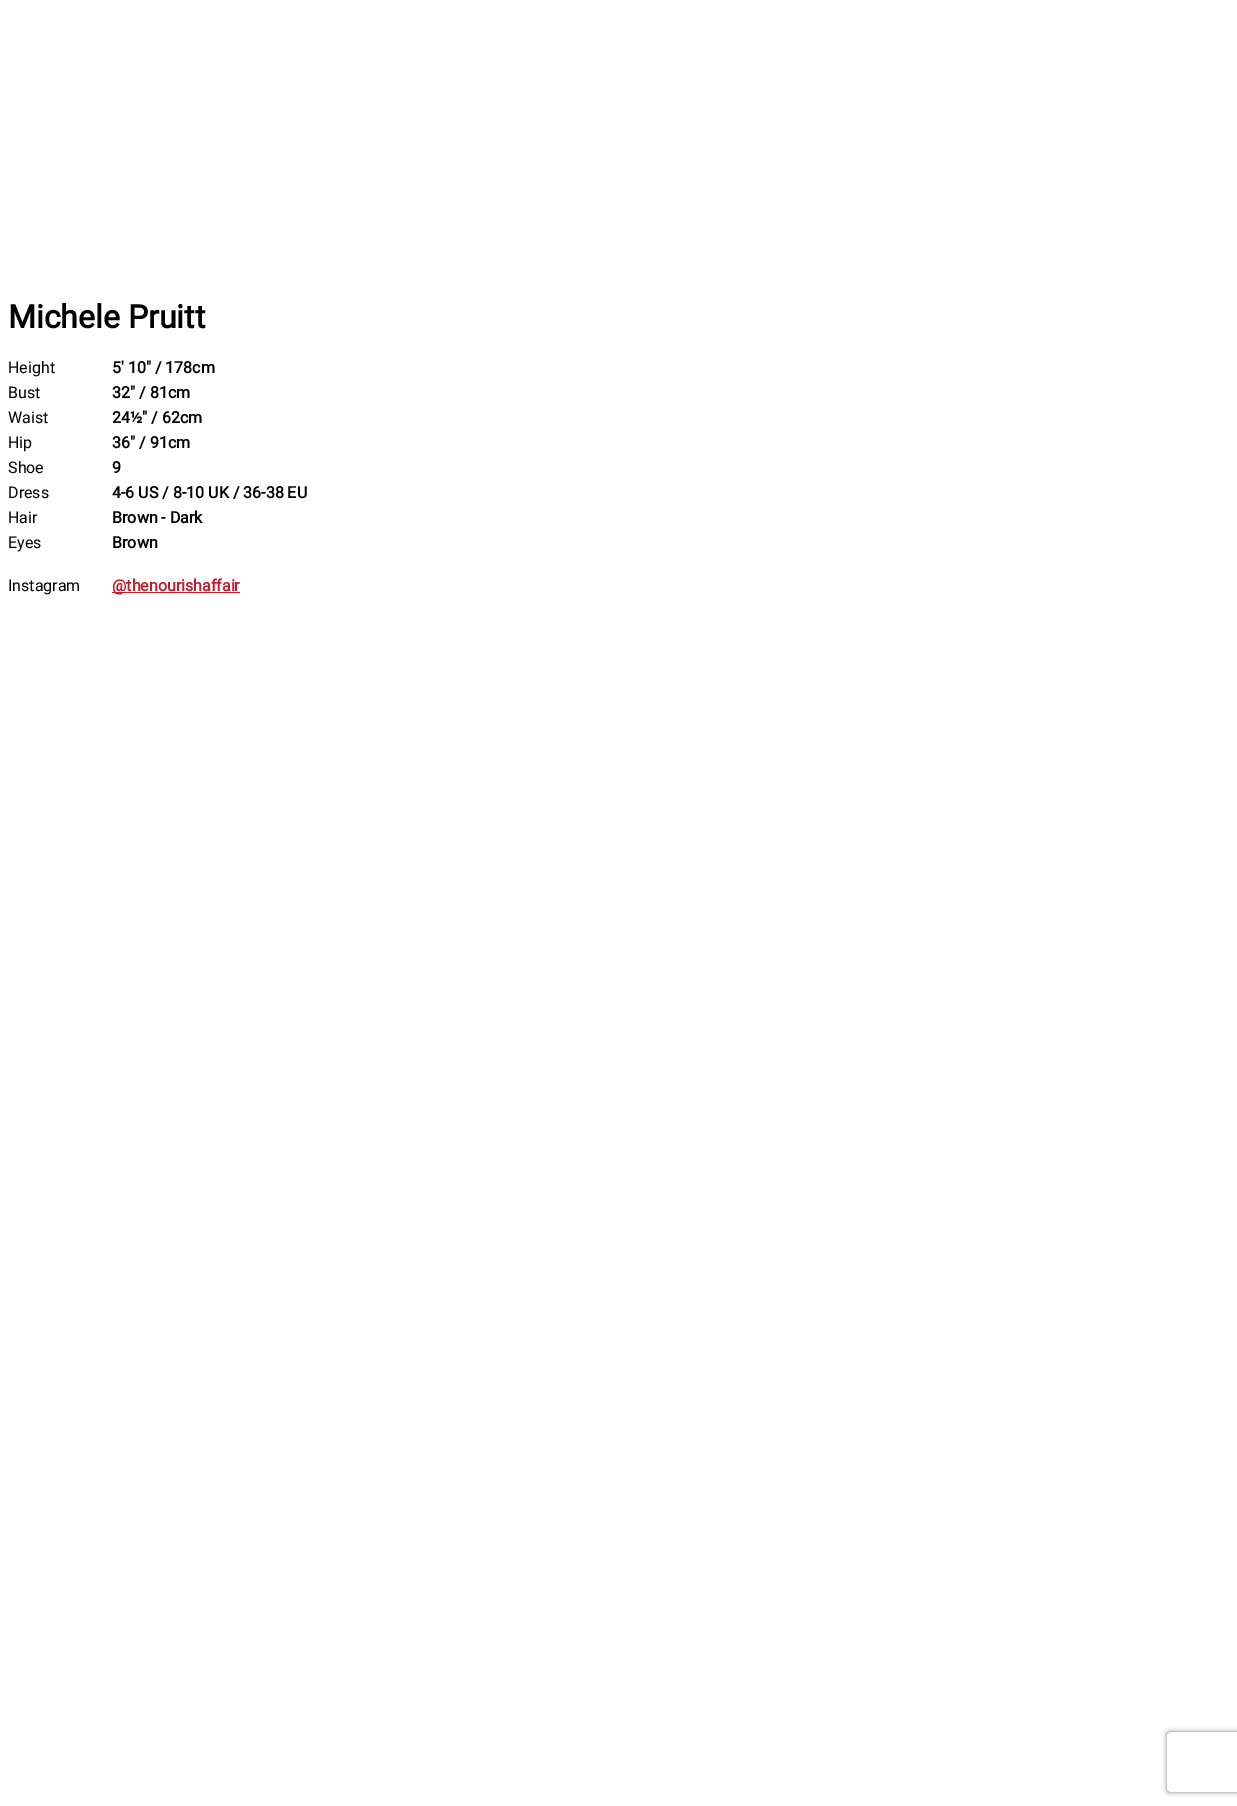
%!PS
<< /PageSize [1237 1806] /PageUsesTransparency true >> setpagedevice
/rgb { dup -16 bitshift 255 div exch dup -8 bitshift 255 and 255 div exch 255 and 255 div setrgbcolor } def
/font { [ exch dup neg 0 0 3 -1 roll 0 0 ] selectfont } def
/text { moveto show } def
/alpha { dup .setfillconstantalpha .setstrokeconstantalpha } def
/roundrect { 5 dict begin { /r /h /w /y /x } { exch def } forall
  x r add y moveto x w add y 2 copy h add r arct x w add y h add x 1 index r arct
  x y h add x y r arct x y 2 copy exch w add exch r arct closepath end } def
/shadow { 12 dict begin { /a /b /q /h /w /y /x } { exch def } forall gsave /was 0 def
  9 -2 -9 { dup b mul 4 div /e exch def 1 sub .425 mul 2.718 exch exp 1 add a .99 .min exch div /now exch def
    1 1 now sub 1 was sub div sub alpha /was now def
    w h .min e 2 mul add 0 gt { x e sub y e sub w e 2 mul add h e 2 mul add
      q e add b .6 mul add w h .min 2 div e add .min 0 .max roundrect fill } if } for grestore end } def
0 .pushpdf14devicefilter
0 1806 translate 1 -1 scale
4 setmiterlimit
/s1 { /Roboto-Bold 32 font 16#000000 rgb } def
/s2 { /Roboto-Regular 16 font 16#000000 rgb } def
/s3 { /Roboto-Bold 16 font 16#000000 rgb } def
/s4 { /Roboto-Bold 16 font 16#BE1E2D rgb } def
16#FFFFFF rgb
0 0 1237 1806 rectfill
s1
(Michele Pruitt) 8 328 text
s2
(Height) 8 373 text
s3
(5' 10" / 178cm) 112 373 text
s2
(Bust) 8 398 text
s3
(32" / 81cm) 112 398 text
s2
(Waist) 8 423 text
s3
(24½" / 62cm) 112 423 text
s2
(Hip) 8 448 text
s3
(36" / 91cm) 112 448 text
s2
(Shoe) 8 473 text
s3
(9) 112 473 text
s2
(Dress) 8 498 text
s3
(4-6 US / 8-10 UK / 36-38 EU) 112 498 text
s2
(Hair) 8 523 text
s3
(Brown - Dark) 112 523 text
s2
(Eyes) 8 548 text
s3
(Brown) 112 548 text
s2
(Instagram) 8 591 text
16#BE1E2D rgb
112 592 128 1 rectfill
s4
(@thenourishaffair) 112 591 text
gsave
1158 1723 moveto 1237 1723 lineto 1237 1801 lineto 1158 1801 lineto closepath 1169 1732 moveto 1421 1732 lineto 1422 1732 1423 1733 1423 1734 curveto 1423 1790 lineto 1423 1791 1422 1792 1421 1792 curveto 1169 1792 lineto 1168 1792 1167 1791 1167 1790 curveto 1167 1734 lineto 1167 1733 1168 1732 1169 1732 curveto closepath eoclip newpath
16#808080 rgb
1167 1732 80 60 2 2.5 1 shadow
grestore
.poppdf14devicefilter showpage
